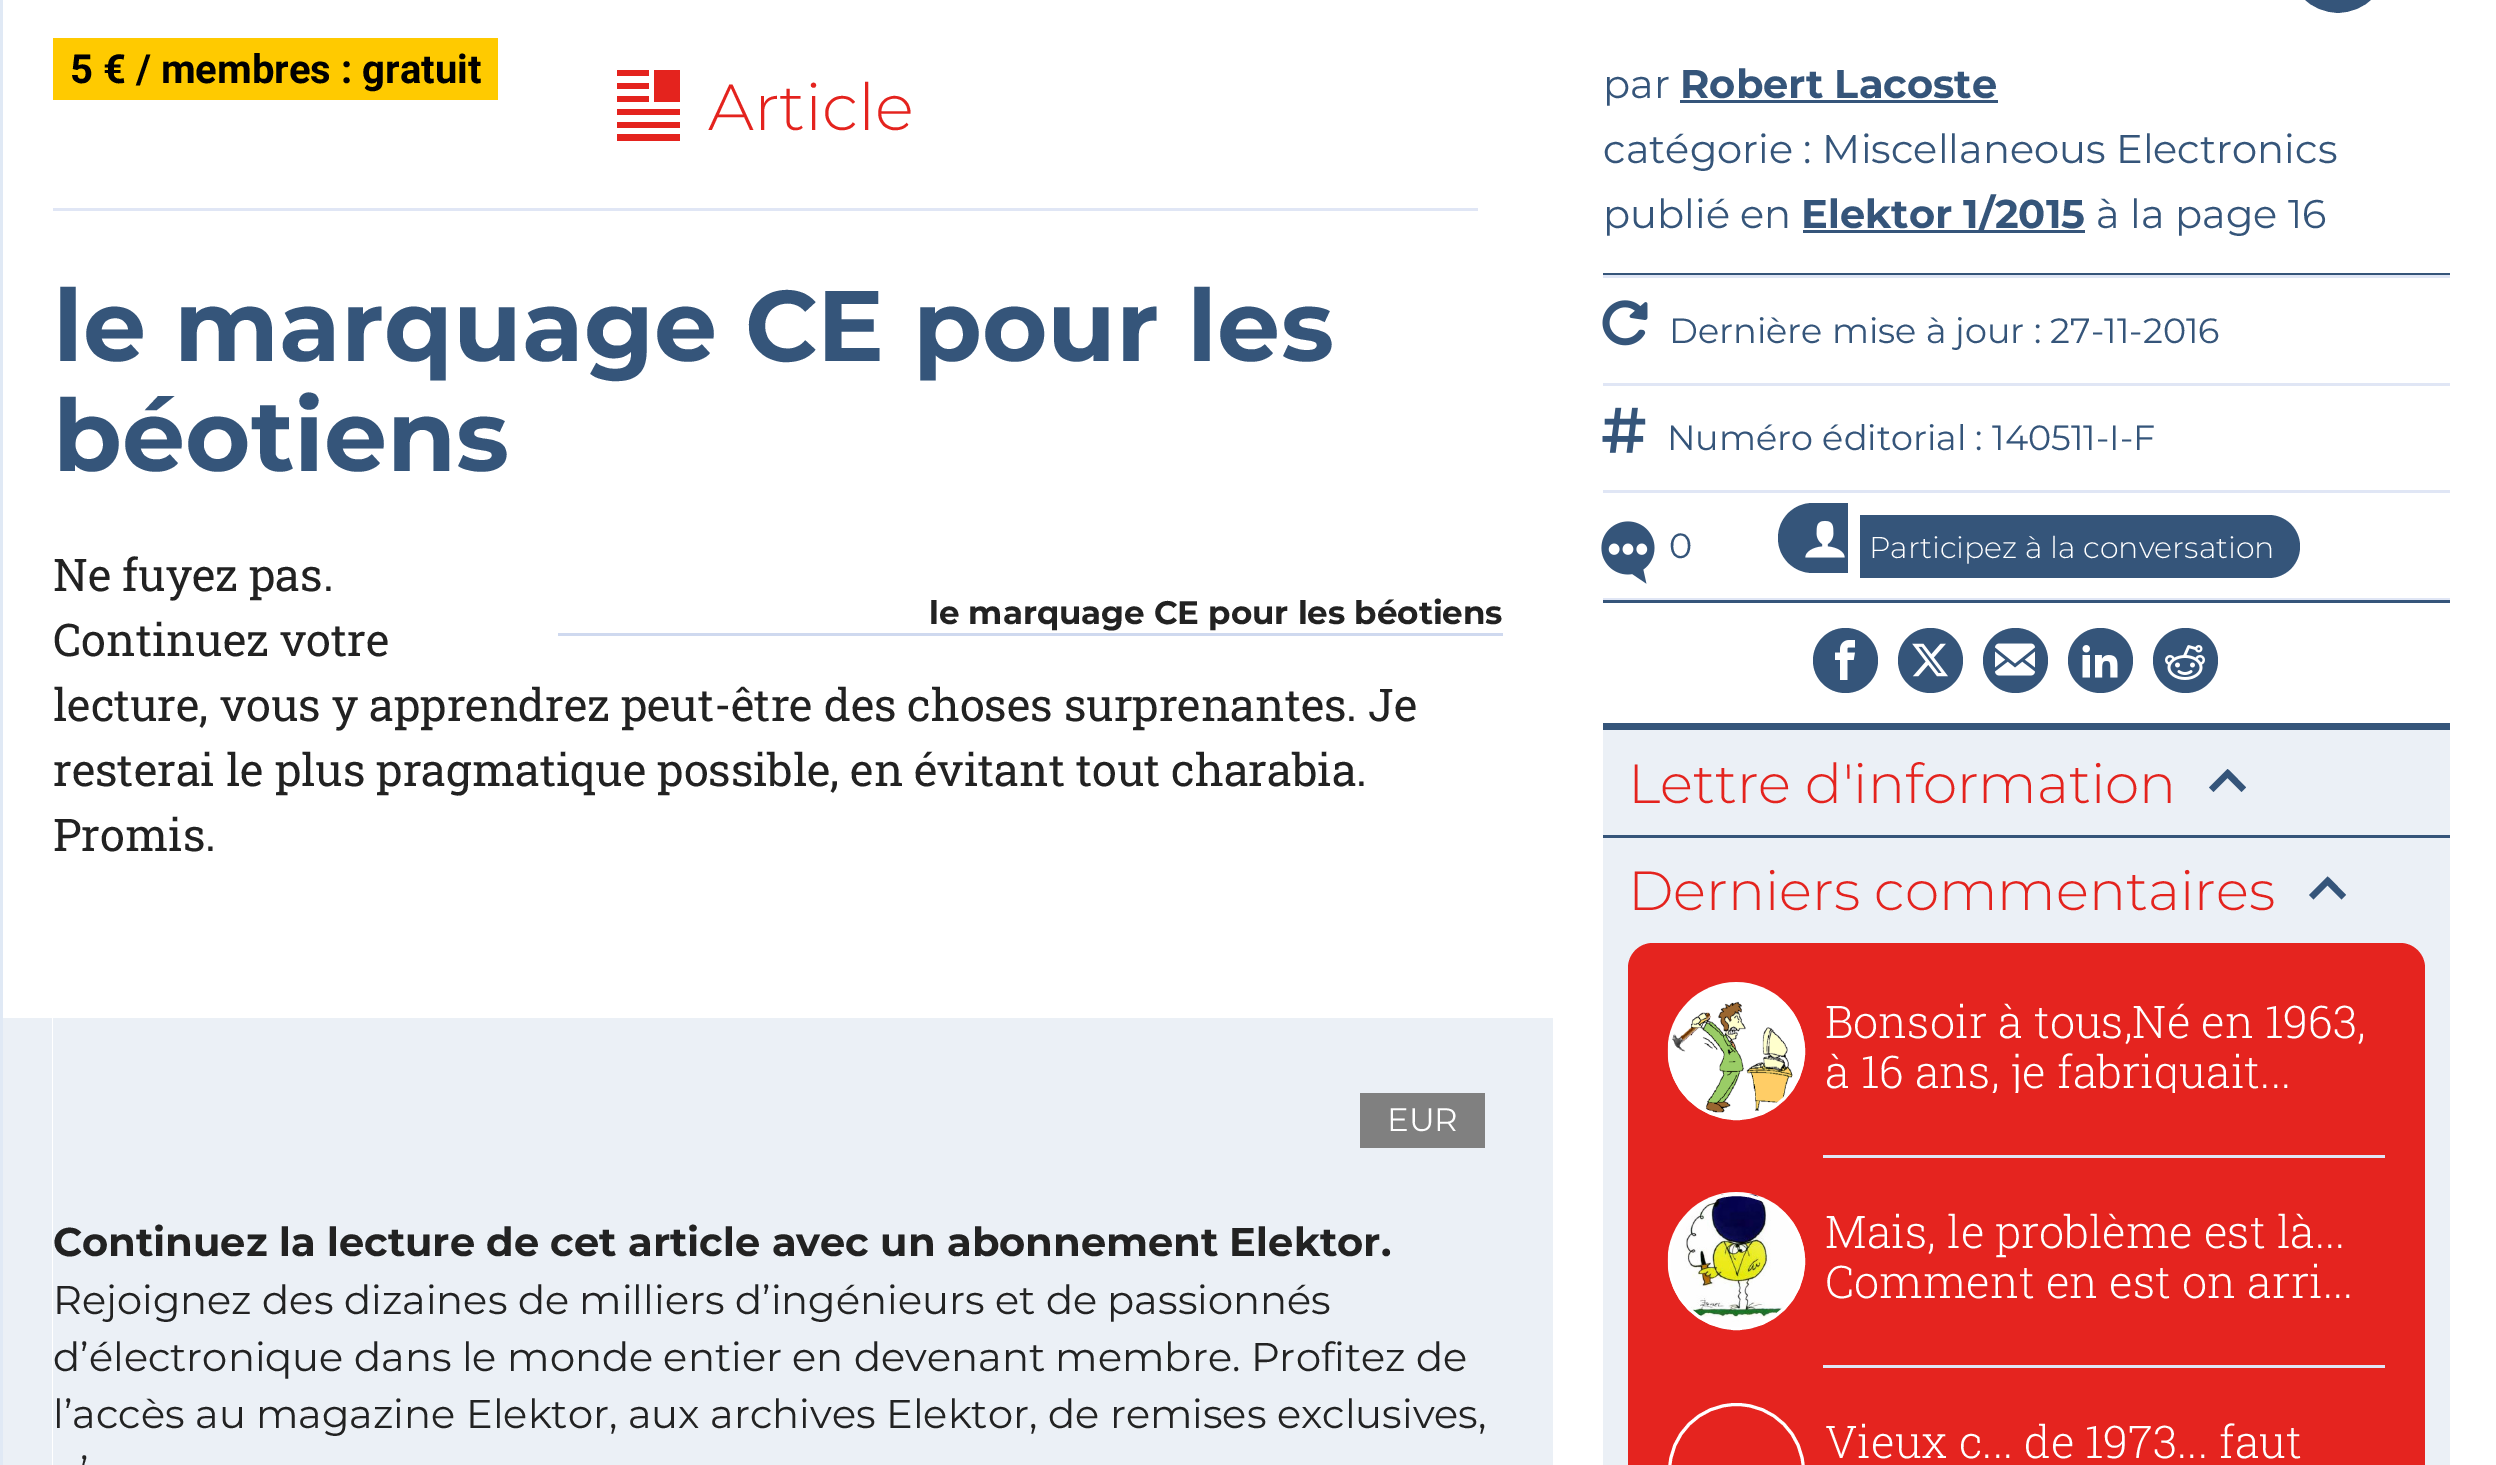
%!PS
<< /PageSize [2496 1465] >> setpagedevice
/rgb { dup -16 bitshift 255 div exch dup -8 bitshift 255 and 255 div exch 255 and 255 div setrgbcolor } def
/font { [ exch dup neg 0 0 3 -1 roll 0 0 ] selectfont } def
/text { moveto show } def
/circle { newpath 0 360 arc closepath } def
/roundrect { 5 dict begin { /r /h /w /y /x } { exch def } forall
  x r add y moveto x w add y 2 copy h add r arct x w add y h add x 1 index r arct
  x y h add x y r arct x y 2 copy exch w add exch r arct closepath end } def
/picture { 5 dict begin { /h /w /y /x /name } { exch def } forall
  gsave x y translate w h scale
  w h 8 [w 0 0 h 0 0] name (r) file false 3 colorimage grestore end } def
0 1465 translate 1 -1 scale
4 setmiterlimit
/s1 { /Roboto-Bold 40 font 16#000000 rgb } def
/s2 { /Montserrat-Light 65 font 16#E4231E rgb } def
/s3 { /Montserrat-Bold 100 font 16#35557A rgb } def
/s4 { /RobotoSlab-Regular 45 font 16#222222 rgb } def
/s5 { /Montserrat-Bold 32.5 font 16#222222 rgb } def
/s6 { /Montserrat-Regular 32.5 font 16#FFFFFF rgb } def
/s7 { /Montserrat-Bold 40 font 16#222222 rgb } def
/s8 { /Montserrat-Regular 40 font 16#222222 rgb } def
/s9 { /Montserrat-Regular 40 font 16#35557A rgb } def
/s10 { /Montserrat-Bold 40 font 16#35557A rgb } def
/s11 { /Montserrat-Regular 35 font 16#35557A rgb } def
/s12 { /Montserrat-Light 30 font 16#FFFFFF rgb } def
/s13 { /Montserrat-Light 55 font 16#E4231E rgb } def
/s14 { /RobotoSlab-Light 45 font 16#FFFFFF rgb } def
16#E0E9F5 rgb
0 0 2496 1465 rectfill
16#FFFFFF rgb
3 0 2493 1465 rectfill
16#35557A rgb
2275.5 -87.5 125 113 62.5 roundrect gsave fill grestore
16#FFFFFF rgb
25 setlinewidth
stroke
16#FFCA00 rgb
53 38 445 62 rectfill
s1
(5 € / membres : gratuit) 70 83 text
16#E0E6F5 rgb
53 208 1425 3 rectfill
16#E4231E rgb
654 70 26 32 rectfill
617 70 32 6 rectfill
617 83 32 6 rectfill
617 96 32 6 rectfill
617 109 63 6 rectfill
617 122 63 6 rectfill
617 134 63 7 rectfill
s2
(Article) 708 130 text
s3
(le marquage CE pour les) 53 361 text
(béotiens) 53 471 text
s4
(Ne fuyez pas.) 53 591 text
(Continuez votre) 53 656 text
(lecture, vous y apprendrez peut-être des choses surprenantes. Je) 53 721 text
(resterai le plus pragmatique possible, en évitant tout charabia.) 53 786 text
(Promis.) 53 851 text
16#CFD9EF rgb
558 633 945 3 rectfill
s5
(le marquage CE pour les béotiens) 929 624 text
16#EBF0F6 rgb
3 1018 moveto 3 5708 lineto 1453 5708 lineto 52 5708 lineto 52 1018 lineto closepath fill
103 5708 moveto 1553 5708 lineto 1553 1018 lineto 1502 1018 lineto 1502 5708 lineto closepath fill
53 1018 1449 447 rectfill
16#808080 rgb
1360 1093 125 55 rectfill
s6
(EUR) 1387 1131 text
s7
(Continuez la lecture de cet article avec un abonnement Elektor.) 53 1256 text
s8
(Rejoignez des dizaines de milliers d’ingénieurs et de passionnés) 53 1314 text
(d’électronique dans le monde entier en devenant membre. Profitez de) 53 1371 text
(l’accès au magazine Elektor, aux archives Elektor, de remises exclusives,) 53 1428 text
(’) 80 1485 text
s9
(par) 1603 98 text
s10
(Robert Lacoste) 1680 98 text
1680 100 318 3 rectfill
s9
(catégorie : Miscellaneous Electronics) 1603 163 text
(publié en) 1603 228 text
1803 230 282 3 rectfill
s10
(Elektor 1/2015) 1801 228 text
s9
(à la page 16) 2096 228 text
1603 273 847 2 rectfill
16#E0E6F5 rgb
1603 275 847 3 rectfill
(pic1.raw) 1602 300 46 46 picture
s11
(Dernière mise à jour : 27-11-2016) 1669 343 text
16#E0E6F5 rgb
1603 383 847 3 rectfill
(pic2.raw) 1602 407 44 46 picture
s11
(Numéro éditorial : 140511-I-F) 1667 450 text
16#E0E6F5 rgb
1603 490 847 3 rectfill
(pic3.raw) 1601 521 54 63 picture
s11
(0) 1669 558 text
1813 503 moveto 1848 503 lineto 1848 573 lineto 1813 573 lineto 1793.5 573 1778 557.5 1778 538 curveto 1778 518.5 1793.5 503 1813 503 curveto closepath fill
(pic4.raw) 1805 520 40 38 picture
1860 515 moveto 2268.5 515 lineto 2286 515 2300 529 2300 546.5 curveto 2300 564 2286 578 2268.5 578 curveto 1860 578 lineto closepath fill
s12
(Participez à la conversation) 1869 558 text
16#E0E6F5 rgb
1603 598 847 2 rectfill
16#35557A rgb
1603 600 847 3 rectfill
1845.5 660.5 32.5 circle fill
(pic5.raw) 1835 640 20 40 picture
1930.5 660.5 32.5 circle fill
(pic6.raw) 1912 643 36 34 picture
2015.5 660.5 32.5 circle fill
(pic7.raw) 1995 643 40 33 picture
2100.5 660.5 32.5 circle fill
(pic8.raw) 2082 645 36 33 picture
2185.5 660.5 32.5 circle fill
(pic9.raw) 2165 645 40 35 picture
1603 723 847 7 rectfill
16#EBF0F6 rgb
1603 730 847 105 rectfill
s13
(Lettre d'information) 1628 803 text
16#35557A rgb
2230 771 moveto 2227.5 769 lineto 2209 787.5 lineto 2213.5 792 lineto 2227.5 778 lineto 2241.5 792 lineto 2246 787.5 lineto closepath fill
1603 835 847 3 rectfill
16#EBF0F6 rgb
1603 838 847 627 rectfill
s13
(Derniers commentaires) 1628 910 text
16#35557A rgb
2330 878.5 moveto 2327.5 876.5 lineto 2309 895 lineto 2313.5 899.5 lineto 2327.5 885.5 lineto 2341.5 899.5 lineto 2346 895 lineto closepath fill
16#E5241F rgb
1628 943 797 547 25 roundrect fill
(pic10.raw) 1667 982 138 138 picture
16#FFFFFF rgb
3 setlinewidth
1736.5 1051.5 67 circle stroke
s14
(Bonsoir à tous,Né en 1963,) 1825 1038 text
gsave
1813 983 572 110 rectclip
(à 16 ans, je fabriquait...) 1825 1088 text
grestore
16#E0E6F5 rgb
1823 1155 562 3 rectfill
(pic11.raw) 1667 1192 138 138 picture
16#FFFFFF rgb
1736.5 1261.5 67 circle stroke
(Mais, le problème est là...) 1825 1248 text
(Comment en est on arri...) 1825 1298 text
16#E0E6F5 rgb
1823 1365 562 3 rectfill
16#FFFFFF rgb
1669.5 1404.5 134 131 67 roundrect stroke
(Vieux c... de 1973... faut) 1825 1458 text
showpage
